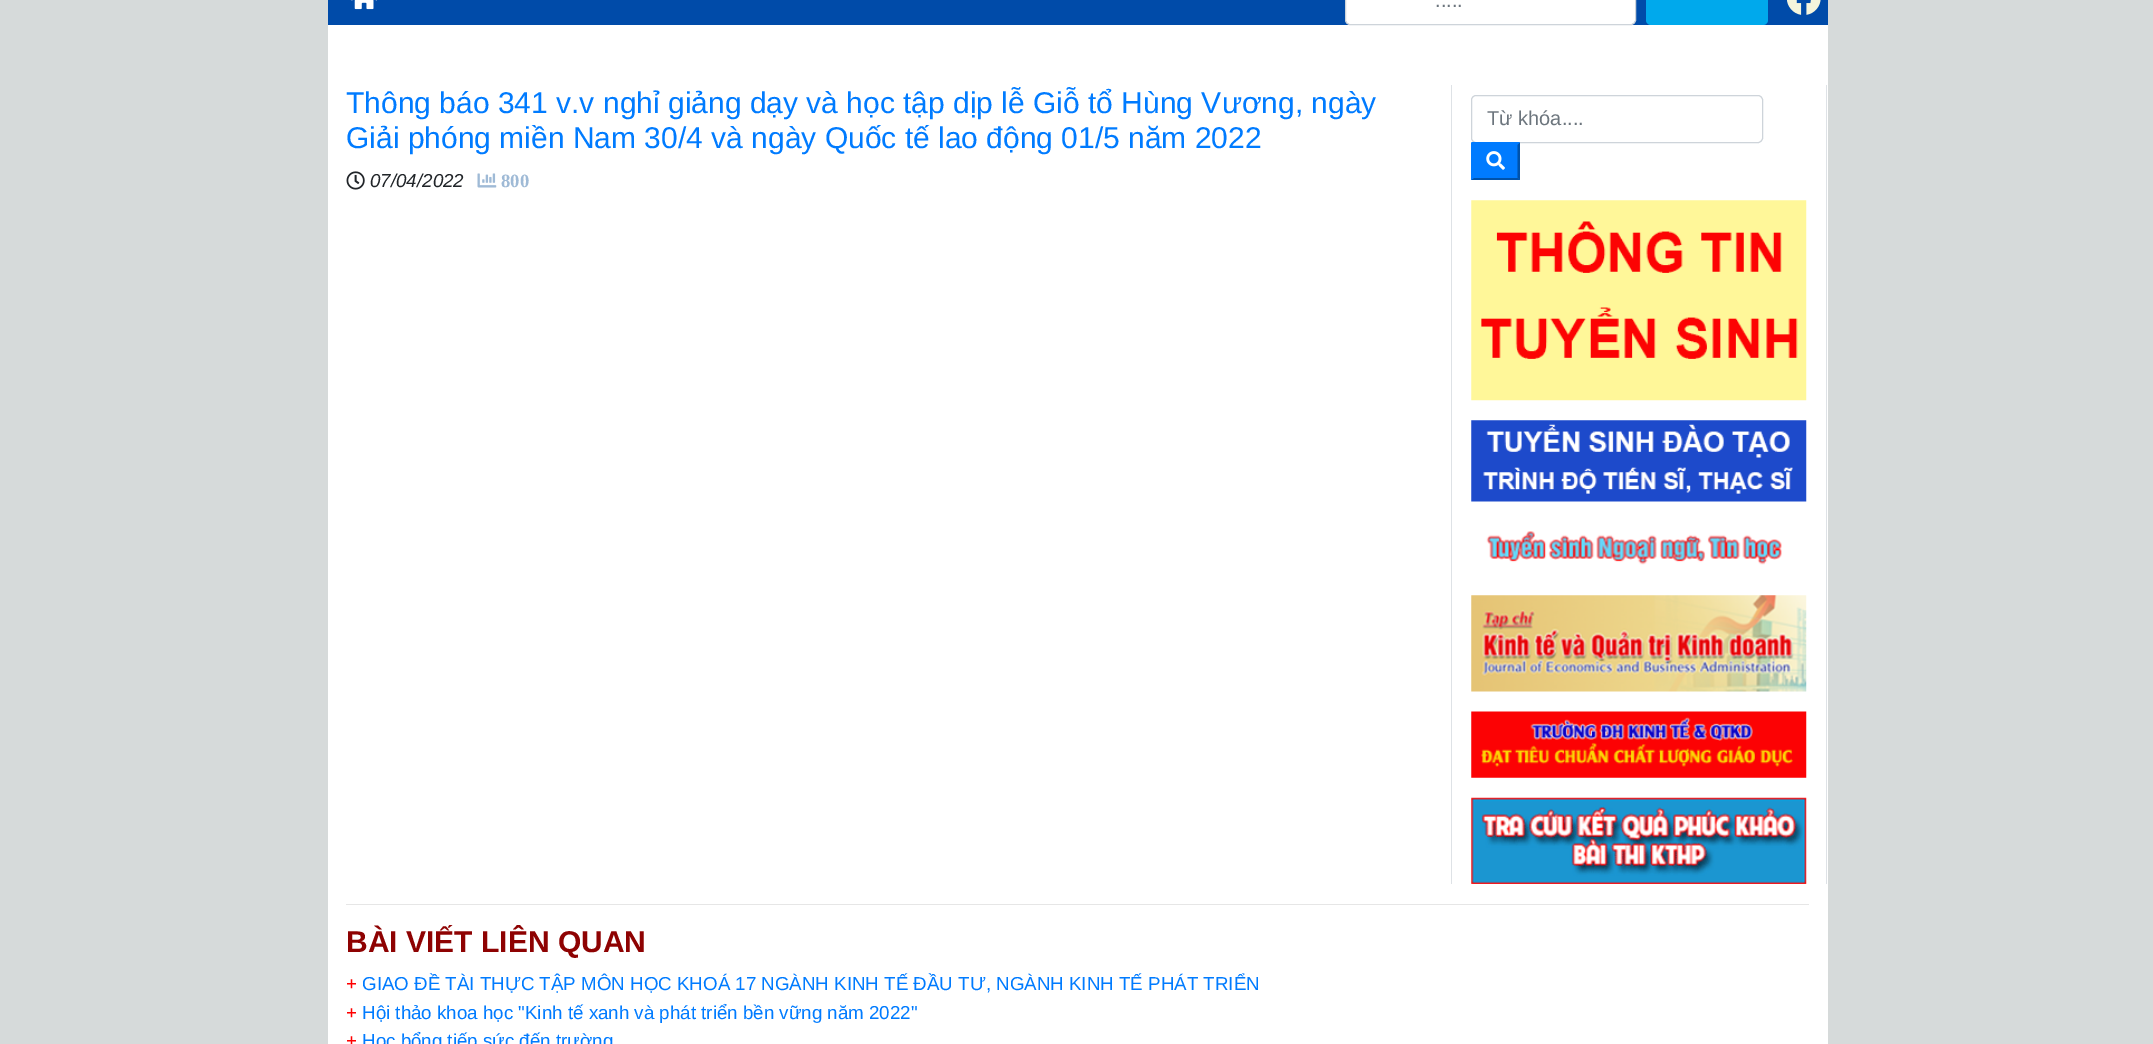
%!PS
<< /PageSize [2153 1044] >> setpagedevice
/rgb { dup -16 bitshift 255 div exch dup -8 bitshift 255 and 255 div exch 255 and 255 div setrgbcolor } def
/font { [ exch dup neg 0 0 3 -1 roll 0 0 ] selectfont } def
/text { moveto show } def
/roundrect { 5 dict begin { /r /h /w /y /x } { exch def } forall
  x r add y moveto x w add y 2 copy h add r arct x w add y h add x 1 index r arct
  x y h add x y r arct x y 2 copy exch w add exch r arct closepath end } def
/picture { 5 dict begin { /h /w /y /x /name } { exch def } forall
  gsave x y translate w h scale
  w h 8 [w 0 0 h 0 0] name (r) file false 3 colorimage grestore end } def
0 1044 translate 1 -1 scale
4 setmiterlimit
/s1 { /LiberationSans-Regular 20 font 16#6C757D rgb } def
/s2 { /LiberationSans-Regular 30 font 16#007BFF rgb } def
/s3 { /LiberationSans-Italic 18.75 font 16#212529 rgb } def
/s4 { /LiberationSerif-Bold 18.75 font 16#9FBAD6 rgb } def
/s5 { /LiberationSans-Bold 30 font 16#8E0202 rgb } def
/s6 { /LiberationSans-Regular 18.75 font 16#FF0000 rgb } def
/s7 { /LiberationSans-Regular 18.75 font 16#007BFF rgb } def
16#D6DADA rgb
0 0 2153 1044 rectfill
16#FFFFFF rgb
328 25 1500 1019 rectfill
16#004BA9 rgb
328 0 1500 25 rectfill
(pic1.raw) 351 0 26 10 picture
16#FFFFFF rgb
1346 -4 289 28 4 roundrect fill
16#CED4DA rgb
1345.5 -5.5 290 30 4.5 roundrect stroke
s1
(.....) 1435 7 text
16#00A9EC rgb
1646 -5 122 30 5 roundrect fill
(pic2.raw) 1787 0 34 15 picture
16#DEE2E6 rgb
1451 85 1 799 rectfill
s2
(Thông báo 341 v.v nghỉ giảng dạy và học tập dịp lễ Giỗ tổ Hùng Vương, ngày) 346 113 text
(Giải phóng miền Nam 30/4 và ngày Quốc tế lao động 01/5 năm 2022) 346 148 text
(pic3.raw) 346 171 19 19 picture
s3
(07/04/2022) 370 187 text
(pic4.raw) 477 173 20 15 picture
s4
(800) 501 187 text
16#DEE2E6 rgb
1826 85 1 799 rectfill
16#CED4DA rgb
1471.5 95.5 291 47 4.5 roundrect stroke
s1
(Từ khóa....) 1487 125 text
16#007BFF rgb
1471 143 49 37 rectfill
1471 142 moveto 1520 142 lineto 1518 145 lineto 1474 145 lineto closepath fill
16#0052AA rgb
1520 142.5 moveto 1520 180 lineto 1517.5 177.5 lineto 1517.5 145 lineto closepath fill
1520 180 moveto 1471 180 lineto 1474 178 lineto 1518 178 lineto closepath fill
16#007BFF rgb
1471 180 moveto 1471 142.5 lineto 1474 145 lineto 1474 177.5 lineto closepath fill
(pic5.raw) 1486 151 19 19 picture
(pic6.raw) 1471 200 336 201 picture
(pic7.raw) 1471 420 336 82 picture
(pic8.raw) 1486 531 296 34 picture
(pic9.raw) 1471 595 336 97 picture
(pic10.raw) 1471 711 336 67 picture
(pic11.raw) 1471 797 336 87 picture
16#E6E6E6 rgb
346 904 1463 1 rectfill
s5
(BÀI VIẾT LIÊN QUAN) 346 952 text
s6
(+) 346 990 text
s7
(GIAO ĐỀ TÀI THỰC TẬP MÔN HỌC KHOÁ 17 NGÀNH KINH TẾ ĐẦU TƯ, NGÀNH KINH TẾ PHÁT TRIỂN) 362 990 text
s6
(+) 346 1019 text
s7
(Hội thảo khoa học "Kinh tế xanh và phát triển bền vững năm 2022") 362 1019 text
s6
(+) 346 1047 text
s7
(Học bổng tiếp sức đến trường) 362 1047 text
showpage
